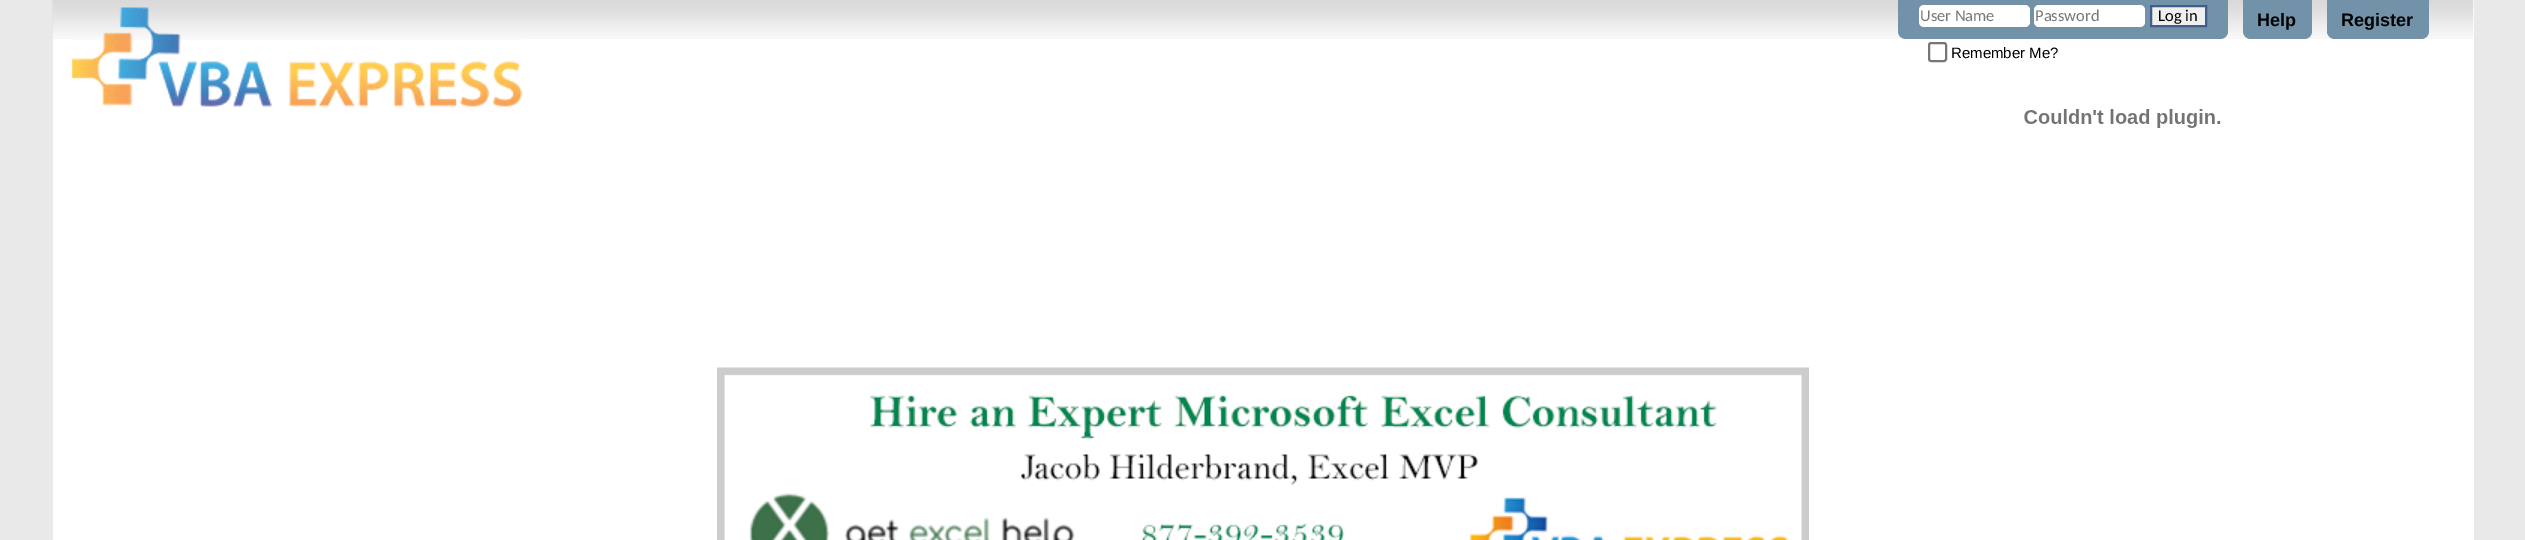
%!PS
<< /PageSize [2525 540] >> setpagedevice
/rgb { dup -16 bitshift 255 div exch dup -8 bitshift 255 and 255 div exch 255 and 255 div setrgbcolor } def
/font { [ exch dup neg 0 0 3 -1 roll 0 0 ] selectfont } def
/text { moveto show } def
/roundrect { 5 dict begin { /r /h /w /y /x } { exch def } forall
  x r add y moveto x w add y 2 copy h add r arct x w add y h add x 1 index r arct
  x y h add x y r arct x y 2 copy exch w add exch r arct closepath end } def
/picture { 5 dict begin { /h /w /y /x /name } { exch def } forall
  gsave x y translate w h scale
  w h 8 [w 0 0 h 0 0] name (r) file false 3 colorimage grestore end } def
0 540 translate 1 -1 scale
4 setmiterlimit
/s1 { /Carlito-Regular 16.5 font 16#777777 rgb } def
/s2 { /Carlito-Regular 16.5 font 16#000000 rgb } def
/s3 { /LiberationSans-Regular 15 font 16#000000 rgb } def
/s4 { /LiberationSans-Bold 18 font 16#000000 rgb } def
16#E9E9E9 rgb
0 0 2525 540 rectfill
16#FFFFFF rgb
53 0 2421 540 rectfill
(pic1.raw) 52 0 2422 39 picture
(pic2.raw) 71 7 452 100 picture
16#7192A8 rgb
1898 0 moveto 2228 0 lineto 2228 31 lineto 2228 35.5 2224.5 39 2220 39 curveto 1906 39 lineto 1901.5 39 1898 35.5 1898 31 curveto closepath fill
16#FFFFFF rgb
1919 5 111 22 5 roundrect fill
s1
(User Name) 1920 21 text
16#FFFFFF rgb
2034 5 111 22 5 roundrect fill
s1
(Password) 2035 21 text
16#EFEFEF rgb
2151 6 moveto 2206 6 lineto 2206 26 lineto 2151 26 lineto closepath gsave fill grestore
16#415D8D rgb
2 setlinewidth
stroke
s2
(Log in) 2158 21 text
16#767676 rgb
1929 43 17 18 2 roundrect stroke
s3
(Remember Me?) 1951 58 text
16#7192A8 rgb
2243 0 moveto 2312 0 lineto 2312 31 lineto 2312 35.5 2308.5 39 2304 39 curveto 2251 39 lineto 2246.5 39 2243 35.5 2243 31 curveto closepath fill
s4
(Help) 2257 26 text
16#7192A8 rgb
2327 0 moveto 2429 0 lineto 2429 31 lineto 2429 35.5 2425.5 39 2421 39 curveto 2335 39 lineto 2330.5 39 2327 35.5 2327 31 curveto closepath fill
s4
(Register) 2341 26 text
(pic3.raw) 2024 109 197 19 picture
(pic4.raw) 717 367 1092 173 picture
showpage
